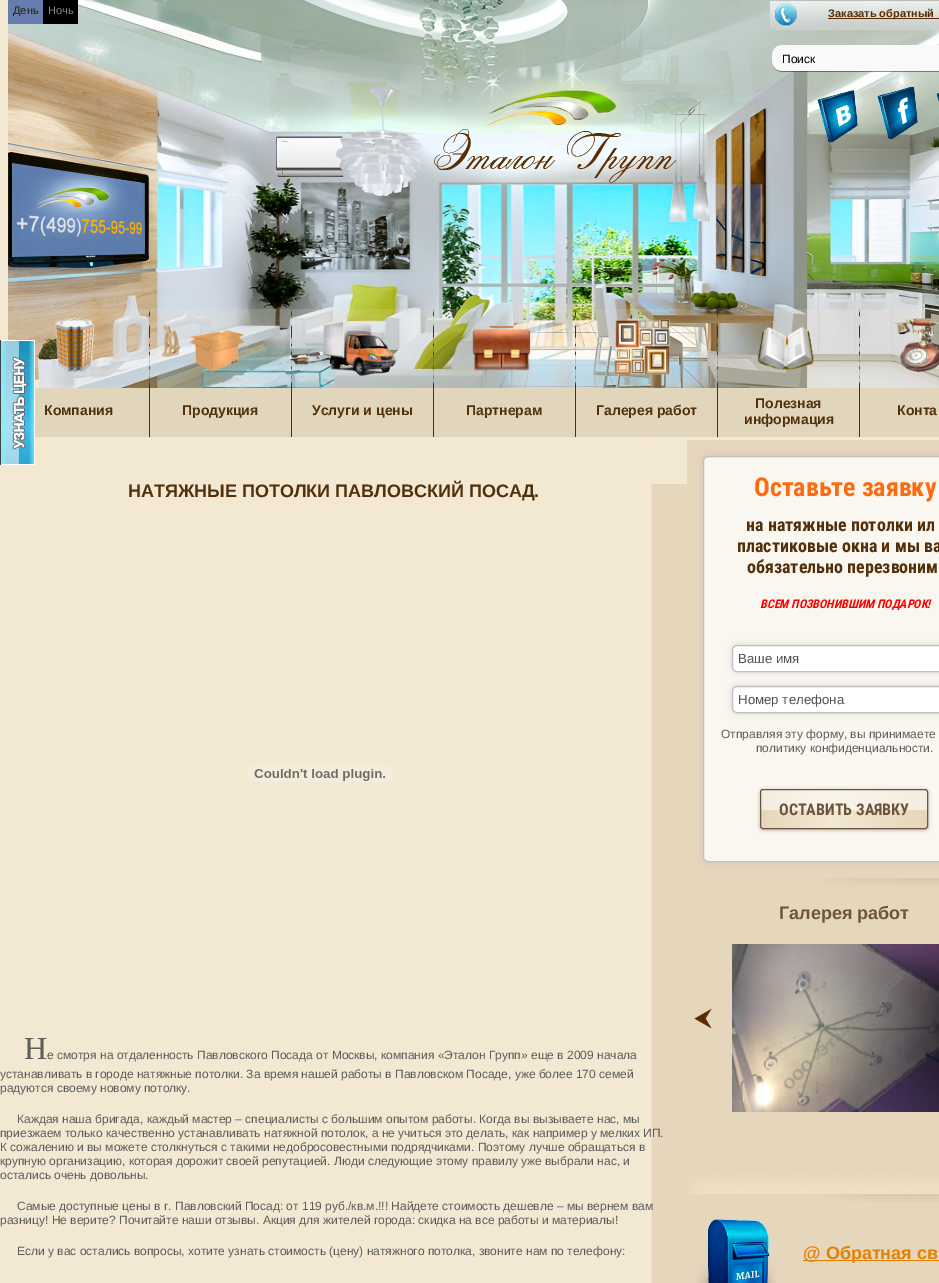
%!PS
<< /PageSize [939 1283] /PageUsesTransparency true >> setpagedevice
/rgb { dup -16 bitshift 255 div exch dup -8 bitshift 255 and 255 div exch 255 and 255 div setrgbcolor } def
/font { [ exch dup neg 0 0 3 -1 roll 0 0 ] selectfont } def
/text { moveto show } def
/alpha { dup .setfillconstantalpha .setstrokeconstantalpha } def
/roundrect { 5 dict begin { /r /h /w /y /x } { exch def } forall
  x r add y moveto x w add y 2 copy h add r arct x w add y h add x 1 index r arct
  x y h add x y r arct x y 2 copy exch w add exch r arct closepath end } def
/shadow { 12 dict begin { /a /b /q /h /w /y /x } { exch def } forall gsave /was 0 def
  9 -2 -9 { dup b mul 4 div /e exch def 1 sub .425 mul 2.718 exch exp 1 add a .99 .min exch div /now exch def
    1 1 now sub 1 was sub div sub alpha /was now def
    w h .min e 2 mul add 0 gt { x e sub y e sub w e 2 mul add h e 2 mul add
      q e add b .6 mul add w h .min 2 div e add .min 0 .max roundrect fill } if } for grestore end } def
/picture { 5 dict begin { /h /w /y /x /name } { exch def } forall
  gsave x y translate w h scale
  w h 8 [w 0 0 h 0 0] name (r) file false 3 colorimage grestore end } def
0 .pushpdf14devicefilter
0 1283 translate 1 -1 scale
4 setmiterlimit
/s1 { /LiberationSans-Regular 11 font 16#1E1D12 rgb } def
/s2 { /LiberationSans-Regular 11 font 16#8B8B8B rgb } def
/s3 { /LiberationSans-Bold 14 font 16#52300B rgb } def
/s4 { /LiberationSans-Bold 11 font 16#5B2C01 rgb } def
/s5 { /LiberationSans-Regular 12 font 16#000000 rgb } def
/s6 { /LiberationSans-Bold 18 font 16#52300B rgb } def
/s7 { /LiberationSerif-Regular 32 font 16#5C5C5C rgb } def
/s8 { /LiberationSans-Regular 12 font 16#5C5C5C rgb } def
/s9 { /RobotoCondensed-Bold 26 font 16#FE6A10 rgb } def
/s10 { /RobotoCondensed-Bold 18 font 16#52300B rgb } def
/s11 { /RobotoCondensed-BoldItalic 12 font 16#FF0000 rgb } def
/s12 { /LiberationSans-Regular 13.25 font 16#505050 rgb } def
/s13 { /RobotoCondensed-Bold 16 font 16#6D543B rgb } def
/s14 { /LiberationSans-Bold 18 font 16#6D543B rgb } def
/s15 { /LiberationSans-Bold 18 font 16#E18104 rgb } def
16#FFFFFF rgb
0 0 939 1283 rectfill
(pic1.raw) 0 0 687 1283 picture
16#F3E8D2 rgb
651 437 36 47 rectfill
(pic2.raw) 8 0 931 388 picture
16#677DAD rgb
8 0 35 24 rectfill
s1
(День) 13 14 text
16#000000 rgb
43 0 35 24 rectfill
s2
(Ночь) 48 14 text
(pic3.raw) 434 74 243 109 picture
0.15 alpha
16#F8E4C9 rgb
8 309 931 79 rectfill
1 alpha
(pic4.raw) 55 318 40 55 picture
16#E1D5BB rgb
35 388 114 49 rectfill
s3
(Компания) 44 415 text
(pic5.raw) 149 309 1 128 picture
(pic6.raw) 189 330 56 42 picture
16#E1D5BB rgb
150 388 141 49 rectfill
s3
(Продукция) 182 415 text
(pic7.raw) 291 309 1 128 picture
(pic8.raw) 323 321 73 55 picture
16#E1D5BB rgb
292 388 141 49 rectfill
s3
(Услуги и цены) 312 415 text
(pic9.raw) 433 309 1 128 picture
(pic10.raw) 472 326 59 45 picture
16#E1D5BB rgb
434 388 141 49 rectfill
s3
(Партнерам) 466 415 text
(pic11.raw) 575 309 1 128 picture
(pic12.raw) 614 319 56 57 picture
16#E1D5BB rgb
576 388 141 49 rectfill
s3
(Галерея работ) 596 415 text
(pic13.raw) 717 309 1 128 picture
(pic14.raw) 757 327 57 44 picture
16#E1D5BB rgb
718 388 141 49 rectfill
s3
(Полезная) 755 408 text
(информация) 744 424 text
(pic15.raw) 859 309 1 128 picture
(pic16.raw) 895 318 44 55 picture
16#E1D5BB rgb
860 388 79 49 rectfill
s3
(Конта) 897 415 text
(pic17.raw) 770 0 169 30 picture
16#5B2C01 rgb
828 18 111 1 rectfill
s4
(Заказать обратный) 828 17 text
(pic18.raw) 772 45 167 27 picture
s5
(Поиск) 782 63 text
(pic19.raw) 817 90 41 53 picture
(pic20.raw) 877 87 41 53 picture
(pic21.raw) 936 93 3 9 picture
s6
(НАТЯЖНЫЕ ПОТОЛКИ ПАВЛОВСКИЙ ПОСАД.) 128 497 text
(pic22.raw) 248 764 144 18 picture
s7
(Н) 24 1059 text
s8
(е смотря на отдаленность Павловского Посада от Москвы, компания «Эталон Групп» еще в 2009 начала) 47 1059 text
(устанавливать в городе натяжные потолки. За время нашей работы в Павловском Посаде, уже более 170 семей) 0 1078 text
(радуются своему новому потолку.) 0 1092 text
(Каждая наша бригада, каждый мастер – специалисты с большим опытом работы. Когда вы вызываете нас, мы) 17 1123 text
(приезжаем только качественно устанавливать натяжной потолок, а не учиться это делать, как например у мелких ИП.) 0 1137 text
(К сожалению и вы можете столкнуться с такими недобросовестными подрядчиками. Поэтому лучше обращаться в) 0 1151 text
(крупную организацию, которая дорожит своей репутацией. Люди следующие этому правилу уже выбрали нас, и) 0 1165 text
(остались очень довольны.) 0 1179 text
(Самые доступные цены в г. Павловский Посад: от 119 руб./кв.м.!!! Найдете стоимость дешевле – мы вернем вам) 17 1210 text
(разницу! Не верите? Почитайте наши отзывы. Акция для жителей города: скидка на все работы и материалы!) 0 1224 text
(Если у вас остались вопросы, хотите узнать стоимость \(цену\) натяжного потолка, звоните нам по телефону:) 17 1255 text
16#E6D6BC rgb
687 440 252 843 rectfill
16#F3E8D2 rgb
687 437 252 3 rectfill
16#C0C0C0 rgb
703 456 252 406 5 3.5 0.7 shadow
16#FAF7F0 rgb
703.5 456.5 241 405 4.5 roundrect gsave fill grestore
16#C0C0C0 rgb
stroke
s9
(Оставьте заявку) 754 496 text
s10
(на натяжные потолки ил) 746 531 text
(пластиковые окна и мы ва) 737 552 text
(обязательно перезвоним) 747 573 text
s11
(ВСЕМ ПОЗВОНИВШИМ ПОДАРОК!) 760 608 text
16#C0C0C0 rgb
732 645 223 27 5 3.5 0.7 shadow
16#FFFFFF rgb
732.5 645.5 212 26 4.5 roundrect gsave fill grestore
16#C0C0C0 rgb
stroke
s12
(Ваше имя) 738 663 text
16#C0C0C0 rgb
732 686 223 27 5 3.5 0.7 shadow
16#FFFFFF rgb
732.5 686.5 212 26 4.5 roundrect gsave fill grestore
16#C0C0C0 rgb
stroke
s12
(Номер телефона) 738 704 text
s8
(Отправляя эту форму, вы принимаете) 721 738 text
(политику конфиденциальности.) 756 752 text
16#000000 rgb
760 790 168 40 3 2 0.3 shadow
gsave
760 789 168 40 3 roundrect clip newpath
gsave 761 789 moveto 927 789 lineto 927 829 lineto 761 829 lineto closepath clip newpath
<< /ShadingType 2 /ColorSpace /DeviceRGB /Coords [761 809 927 809] /Extend [true true] /Function << /FunctionType 3 /Domain [0 1] /Functions [<< /FunctionType 2 /Domain [0 1] /C0 [0.902 0.839 0.737] /C1 [0.953 0.91 0.824] /N 1 >> << /FunctionType 2 /Domain [0 1] /C0 [0.953 0.91 0.824] /C1 [0.902 0.839 0.737] /N 1 >>] /Bounds [0.42] /Encode [0 1 0 1] >> >> shfill grestore
grestore
0.55 alpha
16#FFFFFF rgb
763 810 moveto 927 810 lineto 927 783 932 790 898 790 curveto 790 790 lineto 756 790 761 783 761 810 curveto closepath fill
1 alpha
16#6D543B rgb
760.5 789.5 167 39 2.5 roundrect stroke
s13
(ОСТАВИТЬ ЗАЯВКУ) 779 815 text
(pic23.raw) 688 1174 251 20 picture
(pic24.raw) 822 878 117 8 picture
s14
(Галерея работ) 779 919 text
(pic25.raw) 694 1008 18 20 picture
(pic26.raw) 732 944 207 168 picture
(pic24.raw) 822 1194 117 8 picture
(pic27.raw) 696 1219 80 64 picture
16#E18104 rgb
803 1260 136 1 rectfill
(@ Обратная св) 803 1259 text
(pic28.raw) 0 340 35 125 picture
.poppdf14devicefilter showpage
